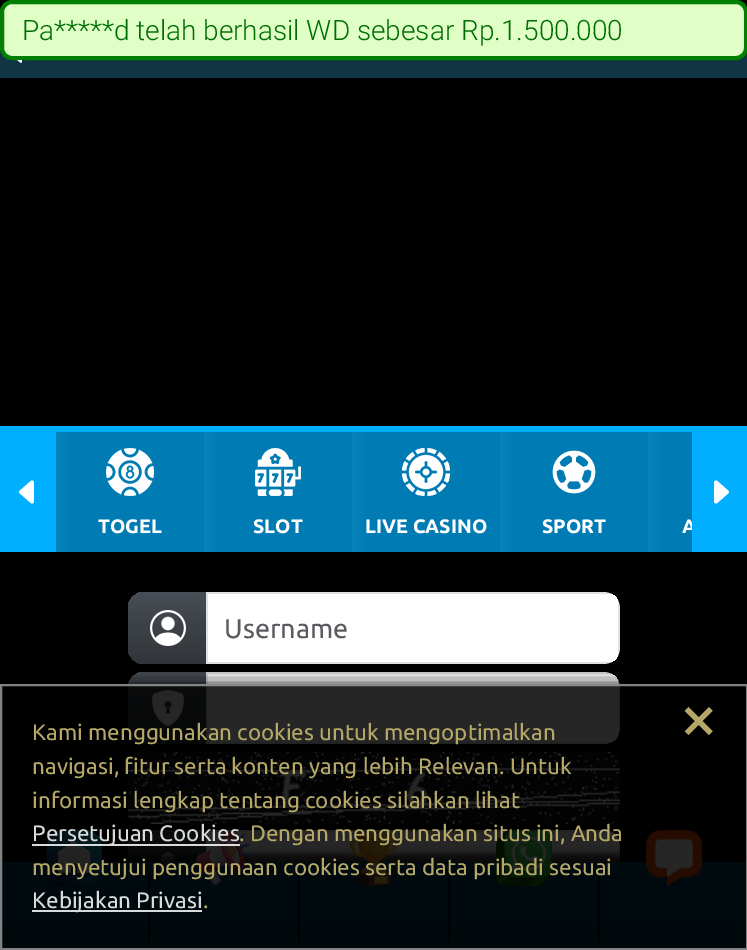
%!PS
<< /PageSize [747 950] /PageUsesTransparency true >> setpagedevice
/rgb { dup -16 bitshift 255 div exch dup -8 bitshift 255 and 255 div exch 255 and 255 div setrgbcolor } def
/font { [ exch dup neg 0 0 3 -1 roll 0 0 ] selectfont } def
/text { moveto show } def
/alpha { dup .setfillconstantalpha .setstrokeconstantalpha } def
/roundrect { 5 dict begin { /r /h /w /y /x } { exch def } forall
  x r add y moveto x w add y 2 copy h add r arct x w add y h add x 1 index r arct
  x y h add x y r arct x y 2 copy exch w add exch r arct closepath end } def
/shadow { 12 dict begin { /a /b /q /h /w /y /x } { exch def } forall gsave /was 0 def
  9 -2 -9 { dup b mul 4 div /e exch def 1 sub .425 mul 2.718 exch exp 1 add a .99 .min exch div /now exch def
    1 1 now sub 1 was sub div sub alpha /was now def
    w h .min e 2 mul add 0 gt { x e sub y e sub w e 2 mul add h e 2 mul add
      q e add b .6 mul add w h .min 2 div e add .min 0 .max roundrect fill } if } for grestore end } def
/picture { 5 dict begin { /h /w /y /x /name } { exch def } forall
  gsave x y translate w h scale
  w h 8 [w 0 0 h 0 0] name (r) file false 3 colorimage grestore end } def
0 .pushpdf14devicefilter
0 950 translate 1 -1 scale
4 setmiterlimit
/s1 { /Roboto-Light 28 font 16#006D02 rgb } def
/s2 { /Ubuntu-Bold 19.5 font 16#FFFFFF rgb } def
/s3 { /Ubuntu-Regular 27 font 16#595C5F rgb } def
/s4 { /Ubuntu-Regular 22.4 font 16#B5A767 rgb } def
/s5 { /Ubuntu-Regular 22.4 font 16#DADBDB rgb } def
/s6 { /Ubuntu-Regular 70 font 16#B5A767 rgb } def
16#000000 rgb
0 0 747 950 rectfill
16#113545 rgb
0 48 747 30 rectfill
16#DFFFC7 rgb
2 2 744 56 10 roundrect gsave fill grestore
16#008000 rgb
4 setlinewidth
stroke
s1
(Pa*****d telah berhasil WD sebesar Rp.1.500.000) 22 40 text
(pic1.raw) 17 60 9 3 picture
16#00AFFF rgb
0 426 747 6 rectfill
0 432 56 120 rectfill
(pic2.raw) 19 480 15 24 picture
gsave 56 432 moveto 204 432 lineto 204 552 lineto 56 552 lineto closepath clip newpath
<< /ShadingType 2 /ColorSpace /DeviceRGB /Coords [56 495 204 495] /Extend [true true] /Function << /FunctionType 3 /Domain [0 1] /Functions [<< /FunctionType 2 /Domain [0 1] /C0 [0.031 0.51 0.729] /C1 [0 0.482 0.702] /N 1 >> << /FunctionType 2 /Domain [0 1] /C0 [0 0.482 0.702] /C1 [0 0.482 0.702] /N 1 >>] /Bounds [0.1] /Encode [0 1 0 1] >> >> shfill grestore
(pic3.raw) 106 448 48 48 picture
s2
(TOGEL) 98 533 text
gsave 204 432 moveto 352 432 lineto 352 552 lineto 204 552 lineto closepath clip newpath
<< /ShadingType 2 /ColorSpace /DeviceRGB /Coords [204 495 352 495] /Extend [true true] /Function << /FunctionType 3 /Domain [0 1] /Functions [<< /FunctionType 2 /Domain [0 1] /C0 [0.031 0.51 0.729] /C1 [0 0.482 0.702] /N 1 >> << /FunctionType 2 /Domain [0 1] /C0 [0 0.482 0.702] /C1 [0 0.482 0.702] /N 1 >>] /Bounds [0.1] /Encode [0 1 0 1] >> >> shfill grestore
(pic4.raw) 255 448 46 48 picture
(SLOT) 253 533 text
gsave 352 432 moveto 500 432 lineto 500 552 lineto 352 552 lineto closepath clip newpath
<< /ShadingType 2 /ColorSpace /DeviceRGB /Coords [352 495 500 495] /Extend [true true] /Function << /FunctionType 3 /Domain [0 1] /Functions [<< /FunctionType 2 /Domain [0 1] /C0 [0.031 0.51 0.729] /C1 [0 0.482 0.702] /N 1 >> << /FunctionType 2 /Domain [0 1] /C0 [0 0.482 0.702] /C1 [0 0.482 0.702] /N 1 >>] /Bounds [0.1] /Encode [0 1 0 1] >> >> shfill grestore
(pic5.raw) 402 448 48 48 picture
(LIVE CASINO) 365 533 text
gsave 500 432 moveto 648 432 lineto 648 552 lineto 500 552 lineto closepath clip newpath
<< /ShadingType 2 /ColorSpace /DeviceRGB /Coords [500 495 648 495] /Extend [true true] /Function << /FunctionType 3 /Domain [0 1] /Functions [<< /FunctionType 2 /Domain [0 1] /C0 [0.031 0.51 0.729] /C1 [0 0.482 0.702] /N 1 >> << /FunctionType 2 /Domain [0 1] /C0 [0 0.482 0.702] /C1 [0 0.482 0.702] /N 1 >>] /Bounds [0.1] /Encode [0 1 0 1] >> >> shfill grestore
(pic6.raw) 552 450 44 44 picture
(SPORT) 542 533 text
gsave 648 432 moveto 692 432 lineto 692 552 lineto 648 552 lineto closepath clip newpath
<< /ShadingType 2 /ColorSpace /DeviceRGB /Coords [648 495 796 495] /Extend [true true] /Function << /FunctionType 3 /Domain [0 1] /Functions [<< /FunctionType 2 /Domain [0 1] /C0 [0.031 0.51 0.729] /C1 [0 0.482 0.702] /N 1 >> << /FunctionType 2 /Domain [0 1] /C0 [0 0.482 0.702] /C1 [0 0.482 0.702] /N 1 >>] /Bounds [0.1] /Encode [0 1 0 1] >> >> shfill grestore
(A) 682 533 text
16#00AFFF rgb
692 432 55 120 rectfill
(pic7.raw) 714 480 15 24 picture
gsave 144 592 moveto 208 592 lineto 208 664 lineto 144 664 lineto 135 664 128 657 128 648 curveto 128 608 lineto 128 599 135 592 144 592 curveto closepath clip newpath
<< /ShadingType 2 /ColorSpace /DeviceRGB /Coords [168 592 168 664] /Extend [true true] /Function << /FunctionType 3 /Domain [0 1] /Functions [<< /FunctionType 2 /Domain [0 1] /C0 [0.282 0.306 0.333] /C1 [0.227 0.247 0.267] /N 1 >> << /FunctionType 2 /Domain [0 1] /C0 [0.227 0.247 0.267] /C1 [0.192 0.208 0.224] /N 1 >>] /Bounds [0.6] /Encode [0 1 0 1] >> >> shfill grestore
(pic8.raw) 150 610 36 36 picture
gsave
128 592 492 72 16 roundrect clip newpath
16#FFFFFF rgb
208 594 moveto 614 594 lineto 616 594 618 596 618 598 curveto 618 658 lineto 618 660 616 662 614 662 curveto 208 662 lineto closepath fill
grestore
16#DEE2E6 rgb
206 592 moveto 206 664 lineto 604 664 lineto 607 664 609 663 612 662 curveto 208 662 lineto 208 594 lineto 612 594 lineto 609 593 607 592 604 592 curveto closepath 620 608 moveto 620 605 619 603 618 600 curveto 618 656 lineto 619 653 620 651 620 648 curveto closepath eofill
s3
(Username) 224 638 text
gsave 144 672 moveto 208 672 lineto 208 744 lineto 144 744 lineto 135 744 128 737 128 728 curveto 128 688 lineto 128 679 135 672 144 672 curveto closepath clip newpath
<< /ShadingType 2 /ColorSpace /DeviceRGB /Coords [168 672 168 744] /Extend [true true] /Function << /FunctionType 3 /Domain [0 1] /Functions [<< /FunctionType 2 /Domain [0 1] /C0 [0.282 0.306 0.333] /C1 [0.227 0.247 0.267] /N 1 >> << /FunctionType 2 /Domain [0 1] /C0 [0.227 0.247 0.267] /C1 [0.192 0.208 0.224] /N 1 >>] /Bounds [0.6] /Encode [0 1 0 1] >> >> shfill grestore
(pic9.raw) 152 690 32 36 picture
gsave
128 672 492 72 16 roundrect clip newpath
16#FFFFFF rgb
208 674 moveto 614 674 lineto 616 674 618 676 618 678 curveto 618 738 lineto 618 740 616 742 614 742 curveto 208 742 lineto closepath fill
grestore
16#DEE2E6 rgb
206 672 moveto 206 744 lineto 604 744 lineto 607 744 609 743 612 742 curveto 208 742 lineto 208 674 lineto 612 674 lineto 609 673 607 672 604 672 curveto closepath 620 688 moveto 620 685 619 683 618 680 curveto 618 736 lineto 619 733 620 731 620 728 curveto closepath eofill
(pic10.raw) 128 752 492 72 picture
gsave 144 830 moveto 208 830 lineto 208 902 lineto 144 902 lineto 135 902 128 895 128 886 curveto 128 846 lineto 128 837 135 830 144 830 curveto closepath clip newpath
<< /ShadingType 2 /ColorSpace /DeviceRGB /Coords [168 830 168 902] /Extend [true true] /Function << /FunctionType 3 /Domain [0 1] /Functions [<< /FunctionType 2 /Domain [0 1] /C0 [0.282 0.306 0.333] /C1 [0.227 0.247 0.267] /N 1 >> << /FunctionType 2 /Domain [0 1] /C0 [0.227 0.247 0.267] /C1 [0.192 0.208 0.224] /N 1 >>] /Bounds [0.6] /Encode [0 1 0 1] >> >> shfill grestore
(pic11.raw) 161 852 14 10 picture
gsave
128 830 492 72 16 roundrect clip newpath
16#FFFFFF rgb
208 832 moveto 614 832 lineto 616 832 618 834 618 836 curveto 618 896 lineto 618 898 616 900 614 900 curveto 208 900 lineto closepath fill
grestore
206 830 moveto 206 902 lineto 604 902 lineto 607 902 609 901 612 900 curveto 208 900 lineto 208 832 lineto 612 832 lineto 609 831 607 830 604 830 curveto closepath 620 846 moveto 620 843 619 841 618 838 curveto 618 894 lineto 619 891 620 889 620 886 curveto closepath eofill
16#000000 rgb
0 854 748 88 0 3 0.75 shadow
gsave 0 862 moveto 747 862 lineto 747 950 lineto 0 950 lineto closepath clip newpath
<< /ShadingType 2 /ColorSpace /DeviceRGB /Coords [374 950 374 862] /Extend [true true] /Function << /FunctionType 2 /Domain [0 1] /C0 [0 0.208 0.302] /C1 [0 0.275 0.4] /N 1 >> >> shfill grestore
(pic12.raw) 46 830 56 56 picture
(pic13.raw) 196 831 56 55 picture
(pic14.raw) 349 830 50 56 picture
(pic15.raw) 496 830 56 56 picture
(pic16.raw) 646 830 56 56 picture
148 870 2 72 rectfill
298 870 2 72 rectfill
448 870 2 72 rectfill
598 870 2 72 rectfill
gsave
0 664 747 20 rectclip
0 684 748 266 0 10 0.85 shadow
grestore
0.85 alpha
0 684 747 266 rectfill
16#999999 rgb
2 setlinewidth
1 685 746 264 rectstroke
1 alpha
s4
(Kami menggunakan cookies untuk mengoptimalkan) 32 740 text
(navigasi, fitur serta konten yang lebih Relevan. Untuk) 32 774 text
(informasi lengkap tentang cookies silahkan lihat) 32 808 text
0.85 alpha
16#FFFFFF rgb
32 844 208 2 rectfill
1 alpha
s5
(Persetujuan Cookies) 32 841 text
s4
(. Dengan menggunakan situs ini, Anda) 239 841 text
(menyetujui penggunaan cookies serta data pribadi sesuai) 32 875 text
0.85 alpha
16#FFFFFF rgb
32 910 170 2 rectfill
1 alpha
s5
(Kebijakan Privasi) 32 908 text
s4
(.) 203 908 text
s6
(×) 679 742 text
.poppdf14devicefilter showpage
